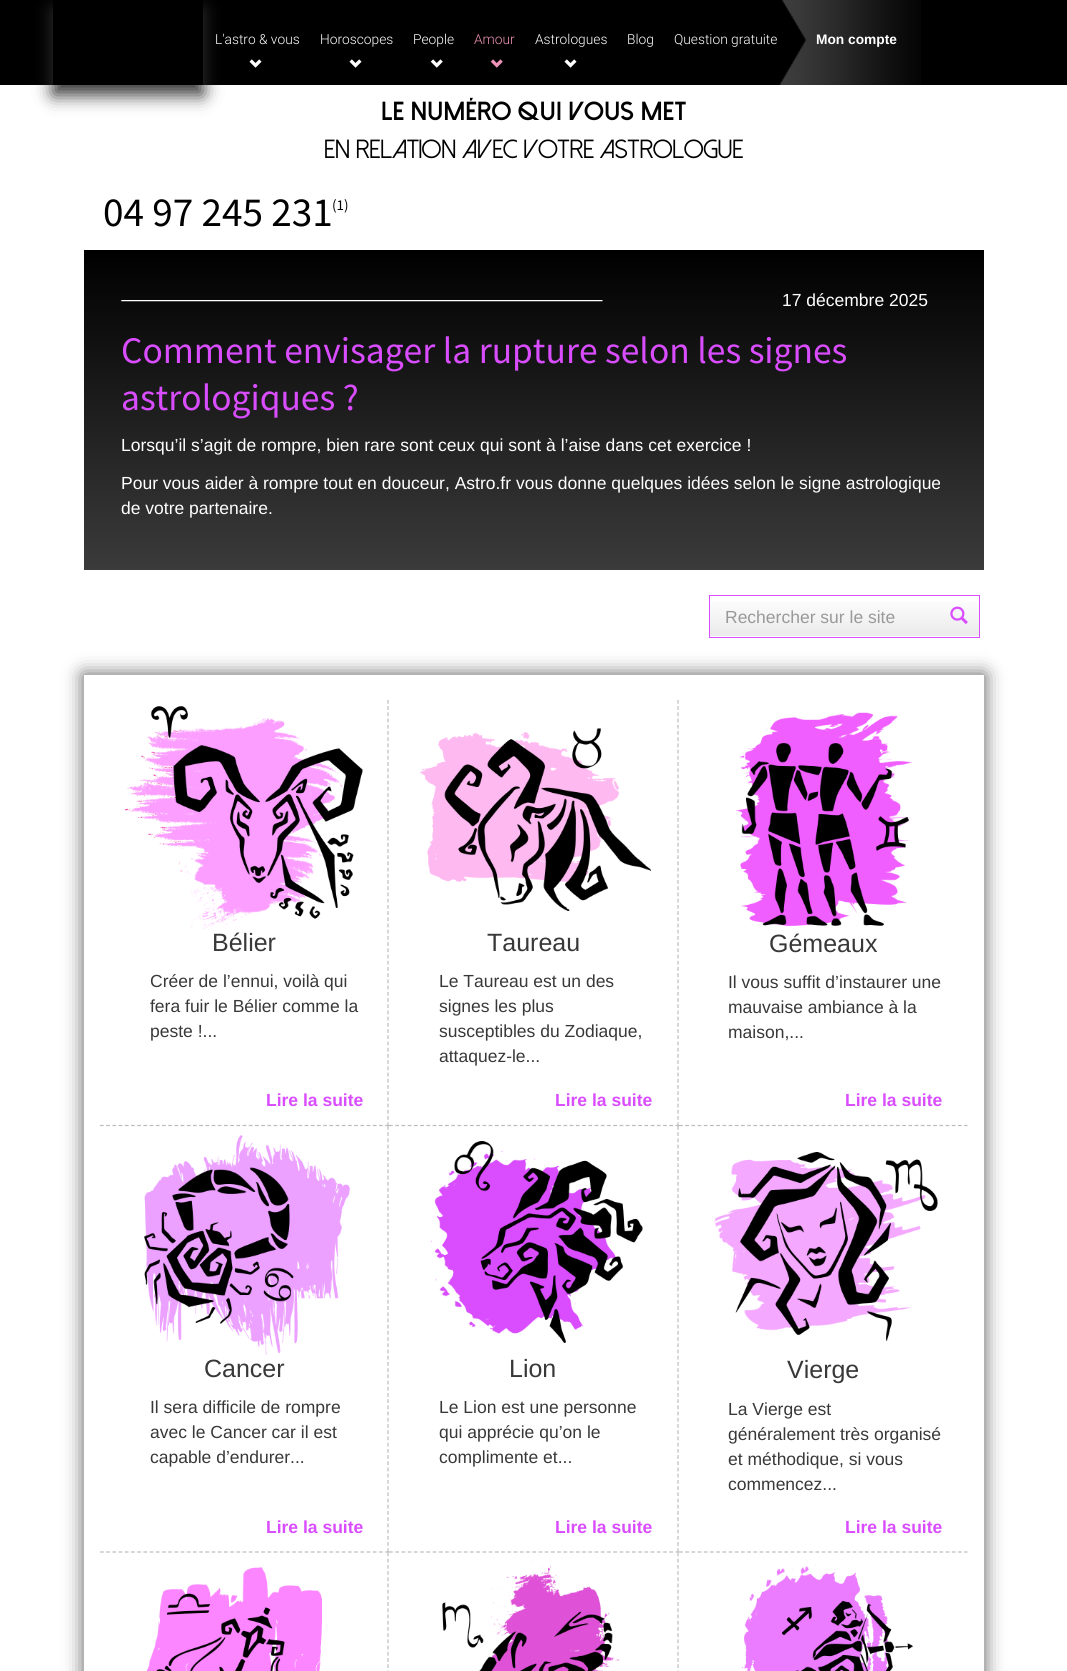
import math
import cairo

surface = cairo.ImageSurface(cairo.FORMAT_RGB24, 1067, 1671)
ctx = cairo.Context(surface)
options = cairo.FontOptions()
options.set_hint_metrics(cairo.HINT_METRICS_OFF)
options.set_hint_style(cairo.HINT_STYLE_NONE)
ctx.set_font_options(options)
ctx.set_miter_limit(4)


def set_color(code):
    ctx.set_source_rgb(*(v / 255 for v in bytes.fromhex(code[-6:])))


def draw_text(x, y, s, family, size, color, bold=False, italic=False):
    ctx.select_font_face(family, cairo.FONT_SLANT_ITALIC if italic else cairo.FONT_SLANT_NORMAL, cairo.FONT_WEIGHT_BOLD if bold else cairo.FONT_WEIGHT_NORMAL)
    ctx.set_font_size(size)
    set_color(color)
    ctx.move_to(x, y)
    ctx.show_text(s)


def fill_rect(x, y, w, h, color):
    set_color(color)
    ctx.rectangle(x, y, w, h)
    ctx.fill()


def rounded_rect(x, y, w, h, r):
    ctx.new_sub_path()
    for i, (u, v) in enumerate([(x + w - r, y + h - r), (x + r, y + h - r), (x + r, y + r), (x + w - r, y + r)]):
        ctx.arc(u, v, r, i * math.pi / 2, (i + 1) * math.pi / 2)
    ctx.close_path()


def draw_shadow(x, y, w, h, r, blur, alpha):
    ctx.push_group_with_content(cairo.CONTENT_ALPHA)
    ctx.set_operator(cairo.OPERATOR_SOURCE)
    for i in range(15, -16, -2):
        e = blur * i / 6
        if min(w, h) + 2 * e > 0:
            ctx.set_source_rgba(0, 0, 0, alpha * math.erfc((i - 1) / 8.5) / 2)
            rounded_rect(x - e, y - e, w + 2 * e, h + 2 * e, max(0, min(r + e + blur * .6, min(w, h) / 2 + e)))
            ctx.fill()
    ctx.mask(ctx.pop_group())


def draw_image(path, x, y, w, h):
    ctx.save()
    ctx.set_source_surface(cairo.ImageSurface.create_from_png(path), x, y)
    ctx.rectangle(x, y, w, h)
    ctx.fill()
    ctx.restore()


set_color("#000000")
ctx.paint()
fill_rect(0, 85, 1067, 1586, "#ffffff")
ctx.save()
ctx.set_fill_rule(cairo.FILL_RULE_EVEN_ODD)
ctx.new_path()
ctx.move_to(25, 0)
ctx.line_to(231, 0)
ctx.line_to(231, 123)
ctx.line_to(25, 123)
ctx.close_path()
ctx.move_to(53, 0)
ctx.line_to(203, 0)
ctx.line_to(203, 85)
ctx.line_to(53, 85)
ctx.close_path()
ctx.clip()
set_color("#343434")
draw_shadow(53, 10, 150, 85, 0, 9, 1)
ctx.restore()
draw_text(215, 44, "L'astro & vous", "Roboto Light", 13.75, "#ffffff")
draw_image("assets/img1.png", 249, 59, 13, 9)
draw_text(320, 44, "Horoscopes", "Roboto Light", 13.75, "#ffffff")
draw_image("assets/img1.png", 349, 59, 13, 9)
draw_text(413, 44, "People", "Roboto Light", 13.75, "#ffffff")
draw_image("assets/img2.png", 430, 59, 13, 9)
draw_text(474, 44, "Amour", "Roboto Light", 13.75, "#ee92b7")
draw_image("assets/img3.png", 490, 59, 13, 9)
draw_text(535, 44, "Astrologues", "Roboto Light", 13.75, "#ffffff")
draw_image("assets/img1.png", 564, 59, 13, 9)
draw_text(627, 44, "Blog", "Roboto Light", 13.75, "#ffffff")
draw_text(674, 44, "Question gratuite", "Roboto Light", 13.75, "#ffffff")
draw_image("assets/img4.png", 780, 0, 141, 85)
draw_text(816, 44, "Mon compte", "Liberation Sans", 13.75, "#ffffff", bold=True)
draw_text(381, 120, "Le numéro qui vous met", "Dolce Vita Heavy", 26.25, "#000000", bold=True)
draw_text(324, 158, "en relation avec votre astrologue", "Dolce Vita", 26.25, "#000000")
draw_text(103, 226, "04 97 245 231", "Source Sans Pro", 41.25, "#000000")
draw_text(332, 210, "(1)", "Source Sans Pro", 15, "#000000")
gradient = cairo.LinearGradient(534, 250, 534, 570)
gradient.add_color_stop_rgba(0, 0, 0, 0, 1)
gradient.add_color_stop_rgba(1, 0.231, 0.231, 0.231, 1)
ctx.set_source(gradient)
ctx.rectangle(84, 250, 900, 320)
ctx.fill()
draw_image("assets/img5.png", 121, 300, 482, 2)
draw_text(782, 306, "17 décembre 2025", "Liberation Sans", 17.5, "#ffffff")
draw_text(121, 363, "Comment envisager la rupture selon les signes", "Source Sans Pro", 37.5, "#d94dff")
draw_text(121, 410, "astrologiques ?", "Source Sans Pro", 37.5, "#d94dff")
draw_text(121, 451, "Lorsqu’il s’agit de rompre, bien rare sont ceux qui sont à l’aise dans cet exercice !", "Liberation Sans", 17.5, "#ffffff")
draw_text(121, 489, "Pour vous aider à rompre tout en douceur, Astro.fr vous donne quelques idées selon le signe astrologique", "Liberation Sans", 17.5, "#ffffff")
draw_text(121, 514, "de votre partenaire.", "Liberation Sans", 17.5, "#ffffff")
gradient = cairo.LinearGradient(844, 596, 844, 636)
gradient.add_color_stop_rgba(0, 1, 1, 1, 1)
gradient.add_color_stop_rgba(1, 0.918, 0.918, 0.918, 1)
ctx.set_source(gradient)
ctx.rectangle(710, 601, 269, 35)
ctx.fill()
ctx.rectangle(709.5, 595.5, 270, 42)
set_color("#d94dff")
ctx.set_line_width(1)
ctx.stroke()
draw_text(725, 623, "Rechercher sur le site", "Liberation Sans", 17.5, "#999999")
draw_image("assets/img6.png", 950, 606, 18, 18)
ctx.save()
ctx.set_fill_rule(cairo.FILL_RULE_EVEN_ODD)
ctx.new_path()
ctx.move_to(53, 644)
ctx.line_to(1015, 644)
ctx.line_to(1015, 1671)
ctx.line_to(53, 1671)
ctx.close_path()
ctx.move_to(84, 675)
ctx.line_to(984, 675)
ctx.line_to(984, 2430)
ctx.line_to(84, 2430)
ctx.close_path()
ctx.clip()
set_color("#666666")
draw_shadow(83, 674, 902, 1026, 0, 9.5, 1)
ctx.restore()
ctx.set_source_rgba(1, 1, 1, 0.85)
ctx.rectangle(983, 675, 1, 996)
ctx.fill()
ctx.new_path()
ctx.move_to(388, 700)
ctx.line_to(388, 1126)
set_color("#bdbbbe")
ctx.set_line_width(1.2)
ctx.set_dash([3.75, 2.46])
ctx.stroke()
ctx.new_path()
ctx.move_to(100, 1125.5)
ctx.line_to(389, 1125.5)
ctx.set_dash([3.75, 2.45])
ctx.stroke()
draw_image("assets/img7.png", 125, 706, 238, 223)
draw_text(212, 951, "Bélier", "Liberation Sans", 25, "#383838")
draw_text(150, 987, "Créer de l’ennui, voilà qui", "Liberation Sans", 17.5, "#383838")
draw_text(150, 1012, "fera fuir le Bélier comme la", "Liberation Sans", 17.5, "#383838")
draw_text(150, 1037, "peste !...", "Liberation Sans", 17.5, "#383838")
draw_text(266, 1106, "Lire la suite", "Liberation Sans", 17.5, "#d94dff", bold=True)
ctx.new_path()
ctx.move_to(678, 700)
ctx.line_to(678, 1126)
set_color("#bdbbbe")
ctx.set_dash([3.75, 2.46])
ctx.stroke()
ctx.new_path()
ctx.move_to(389, 1125.5)
ctx.line_to(679, 1125.5)
ctx.set_dash([3.75, 2.48])
ctx.stroke()
draw_image("assets/img8.png", 420, 728, 231, 183)
draw_text(487, 951, "Taureau", "Liberation Sans", 25, "#383838")
draw_text(439, 987, "Le Taureau est un des", "Liberation Sans", 17.5, "#383838")
draw_text(439, 1012, "signes les plus", "Liberation Sans", 17.5, "#383838")
draw_text(439, 1037, "susceptibles du Zodiaque,", "Liberation Sans", 17.5, "#383838")
draw_text(439, 1062, "attaquez-le...", "Liberation Sans", 17.5, "#383838")
draw_text(555, 1106, "Lire la suite", "Liberation Sans", 17.5, "#d94dff", bold=True)
ctx.new_path()
ctx.move_to(679, 1125.5)
ctx.line_to(967.5, 1125.5)
set_color("#bdbbbe")
ctx.set_dash([3.75, 2.45])
ctx.stroke()
draw_image("assets/img9.png", 736, 712, 176, 215)
draw_text(769, 952, "Gémeaux", "Liberation Sans", 25, "#383838")
draw_text(728, 988, "Il vous suffit d’instaurer une", "Liberation Sans", 17.5, "#383838")
draw_text(728, 1013, "mauvaise ambiance à la", "Liberation Sans", 17.5, "#383838")
draw_text(728, 1038, "maison,...", "Liberation Sans", 17.5, "#383838")
draw_text(845, 1106, "Lire la suite", "Liberation Sans", 17.5, "#d94dff", bold=True)
ctx.new_path()
ctx.move_to(388, 1126)
ctx.line_to(388, 1552.5)
set_color("#bdbbbe")
ctx.set_dash([3.75, 2.46])
ctx.stroke()
ctx.new_path()
ctx.move_to(100, 1552)
ctx.line_to(389, 1552)
ctx.set_dash([3.75, 2.45])
ctx.stroke()
draw_image("assets/img10.png", 144, 1135, 206, 220)
draw_text(204, 1377, "Cancer", "Liberation Sans", 25, "#383838")
draw_text(150, 1413, "Il sera difficile de rompre", "Liberation Sans", 17.5, "#383838")
draw_text(150, 1438, "avec le Cancer car il est", "Liberation Sans", 17.5, "#383838")
draw_text(150, 1463, "capable d’endurer...", "Liberation Sans", 17.5, "#383838")
draw_text(266, 1533, "Lire la suite", "Liberation Sans", 17.5, "#d94dff", bold=True)
ctx.new_path()
ctx.move_to(678, 1126)
ctx.line_to(678, 1552.5)
set_color("#bdbbbe")
ctx.set_dash([3.75, 2.46])
ctx.stroke()
ctx.new_path()
ctx.move_to(389, 1552)
ctx.line_to(679, 1552)
ctx.set_dash([3.75, 2.48])
ctx.stroke()
draw_image("assets/img11.png", 431, 1141, 212, 202)
draw_text(509, 1377, "Lion", "Liberation Sans", 25, "#383838")
draw_text(439, 1413, "Le Lion est une personne", "Liberation Sans", 17.5, "#383838")
draw_text(439, 1438, "qui apprécie qu’on le", "Liberation Sans", 17.5, "#383838")
draw_text(439, 1463, "complimente et...", "Liberation Sans", 17.5, "#383838")
draw_text(555, 1533, "Lire la suite", "Liberation Sans", 17.5, "#d94dff", bold=True)
ctx.new_path()
ctx.move_to(679, 1552)
ctx.line_to(967.5, 1552)
set_color("#bdbbbe")
ctx.set_dash([3.75, 2.45])
ctx.stroke()
draw_image("assets/img12.png", 714, 1152, 224, 189)
draw_text(787, 1378, "Vierge", "Liberation Sans", 25, "#383838")
draw_text(728, 1415, "La Vierge est", "Liberation Sans", 17.5, "#383838")
draw_text(728, 1440, "généralement très organisé", "Liberation Sans", 17.5, "#383838")
draw_text(728, 1465, "et méthodique, si vous", "Liberation Sans", 17.5, "#383838")
draw_text(728, 1490, "commencez...", "Liberation Sans", 17.5, "#383838")
draw_text(845, 1533, "Lire la suite", "Liberation Sans", 17.5, "#d94dff", bold=True)
ctx.new_path()
ctx.move_to(388, 1552.5)
ctx.line_to(388, 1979)
set_color("#bdbbbe")
ctx.set_dash([3.75, 2.46])
ctx.stroke()
draw_image("assets/img13.png", 146, 1567, 176, 104)
ctx.new_path()
ctx.move_to(678, 1552.5)
ctx.line_to(678, 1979)
ctx.stroke()
draw_image("assets/img14.png", 442, 1561, 178, 110)
draw_image("assets/img15.png", 741, 1564, 172, 107)
surface.write_to_png("output.png")
